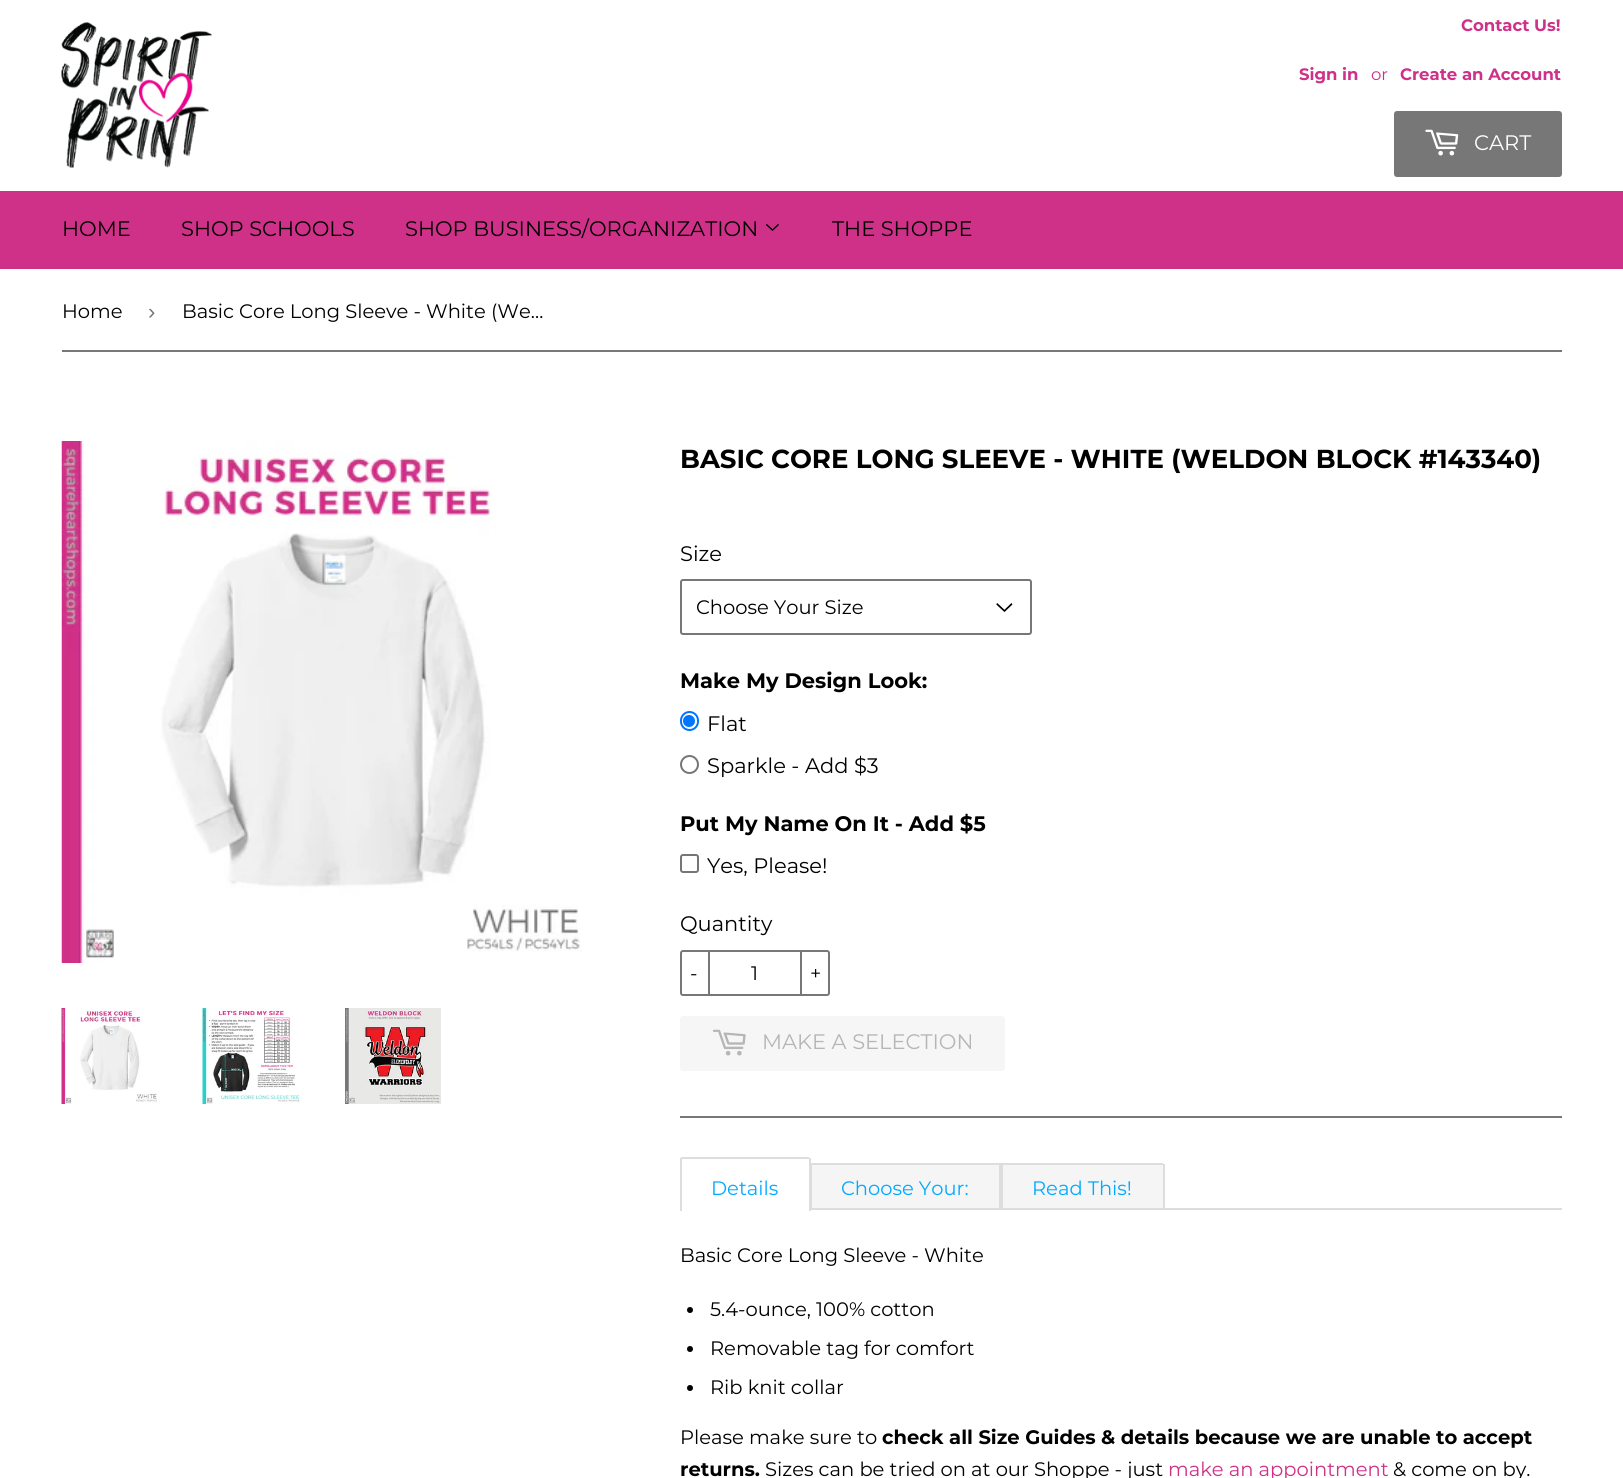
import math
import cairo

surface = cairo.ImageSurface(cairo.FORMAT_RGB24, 1623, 1478)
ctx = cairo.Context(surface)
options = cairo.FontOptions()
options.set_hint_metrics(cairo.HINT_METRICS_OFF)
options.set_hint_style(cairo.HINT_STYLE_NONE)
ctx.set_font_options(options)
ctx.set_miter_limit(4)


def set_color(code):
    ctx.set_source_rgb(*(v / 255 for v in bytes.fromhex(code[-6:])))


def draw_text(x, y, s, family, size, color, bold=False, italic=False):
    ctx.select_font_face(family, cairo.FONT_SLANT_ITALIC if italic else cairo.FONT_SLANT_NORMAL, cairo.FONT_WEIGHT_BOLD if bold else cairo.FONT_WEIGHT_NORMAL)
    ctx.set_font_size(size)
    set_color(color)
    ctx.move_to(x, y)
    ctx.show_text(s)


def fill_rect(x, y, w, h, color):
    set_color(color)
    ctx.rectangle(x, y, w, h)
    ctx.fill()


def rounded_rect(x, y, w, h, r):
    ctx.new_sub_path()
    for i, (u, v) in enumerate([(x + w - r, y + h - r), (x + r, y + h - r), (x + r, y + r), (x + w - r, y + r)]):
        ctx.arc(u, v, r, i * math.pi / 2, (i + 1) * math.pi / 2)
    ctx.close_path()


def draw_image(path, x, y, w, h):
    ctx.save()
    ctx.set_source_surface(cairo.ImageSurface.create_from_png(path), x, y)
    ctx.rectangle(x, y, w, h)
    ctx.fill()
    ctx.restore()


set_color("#ffffff")
ctx.paint()
draw_image("assets/img1.png", 61, 22, 151, 146)
draw_text(1461, 31, "Contact Us!", "Montserrat", 16.5, "#cf3088", bold=True)
draw_text(1299, 80, "Sign in", "Montserrat", 16.5, "#cf3088", bold=True)
draw_text(1371, 80, "or", "Montserrat", 16.5, "#cf3088")
draw_text(1400, 80, "Create an Account", "Montserrat", 16.5, "#cf3088", bold=True)
set_color("#777777")
rounded_rect(1394, 111, 168, 66, 3)
ctx.fill()
draw_image("assets/img2.png", 1425, 129, 34, 27)
draw_text(1474, 150, "CART", "Montserrat", 21, "#ffffff")
fill_rect(0, 191, 1623, 78, "#cf3088")
draw_text(62, 236, "HOME", "Montserrat", 21, "#000000")
draw_text(181, 236, "SHOP SCHOOLS", "Montserrat", 21, "#000000")
draw_text(405, 236, "SHOP BUSINESS/ORGANIZATION", "Montserrat", 21, "#000000")
draw_image("assets/img3.png", 766, 224, 13, 7)
draw_text(832, 236, "THE SHOPPE", "Montserrat", 21, "#000000")
fill_rect(62, 350, 1500, 2, "#777777")
draw_text(62, 318, "Home", "Montserrat", 19.5, "#000000")
draw_text(148, 319, "›", "Liberation Sans", 22, "#767676")
draw_text(182, 318, "Basic Core Long Sleeve - White (We…", "Montserrat", 19.5, "#000000")
draw_image("assets/img4.png", 61, 441, 521, 522)
draw_image("assets/img5.png", 61, 1008, 96, 96)
draw_image("assets/img6.png", 202, 1008, 98, 96)
draw_image("assets/img7.png", 345, 1008, 96, 96)
draw_text(680, 468, "BASIC CORE LONG SLEEVE - WHITE (WELDON BLOCK #143340)", "Montserrat", 26, "#000000", bold=True)
draw_text(680, 561, "Size", "Montserrat", 21, "#000000")
draw_image("assets/img8.png", 996, 603, 17, 9)
rounded_rect(681, 580, 350, 54, 2)
set_color("#777777")
ctx.stroke()
draw_text(696, 614, "Choose Your Size", "Montserrat", 19.5, "#000000")
draw_text(680, 688, "Make My Design Look:", "Montserrat", 21, "#000000", bold=True)
rounded_rect(681, 712, 17, 18, 8.5)
set_color("#0075ff")
ctx.stroke()
ctx.arc(689, 721, 6, 0, 2 * math.pi)
ctx.fill()
draw_text(707, 731, "Flat", "Montserrat", 21, "#000000")
ctx.new_path()
ctx.arc(689.5, 764.5, 8.5, 0, 2 * math.pi)
set_color("#767676")
ctx.stroke()
draw_text(707, 773, "Sparkle - Add $3", "Montserrat", 21, "#000000")
draw_text(680, 831, "Put My Name On It - Add $5", "Montserrat", 21, "#000000", bold=True)
rounded_rect(681, 855, 17, 17, 2)
set_color("#767676")
ctx.stroke()
draw_text(707, 873, "Yes, Please!", "Montserrat", 21, "#000000")
draw_text(680, 931, "Quantity", "Montserrat", 21, "#000000")
rounded_rect(681, 951, 148, 44, 2)
set_color("#777777")
ctx.stroke()
fill_rect(708, 950, 2, 46, "#777777")
draw_text(690, 980, "-", "Montserrat", 19.5, "#000000")
draw_text(751, 980, "1", "Montserrat", 19.5, "#000000")
fill_rect(800, 950, 2, 46, "#777777")
draw_text(810, 980, "+", "Montserrat", 19.5, "#000000")
set_color("#f6f6f6")
rounded_rect(680, 1016, 325, 55, 3)
ctx.fill()
draw_image("assets/img9.png", 712, 1029, 34, 27)
draw_text(762, 1049, "MAKE A SELECTION", "Montserrat", 21, "#b6b6b6")
fill_rect(680, 1116, 882, 2, "#777777")
fill_rect(811, 1208, 751, 2, "#dddddd")
fill_rect(681, 1157, 128, 2, "#dddddd")
fill_rect(810, 1163, 191, 2, "#dddddd")
fill_rect(809, 1158, 2, 53, "#dddddd")
fill_rect(680, 1158, 2, 53, "#dddddd")
draw_text(711, 1195, "Details", "Montserrat", 19.5, "#00aaff")
fill_rect(812, 1165, 187, 43, "#f5f5f5")
fill_rect(999, 1163, 2, 45, "#dddddd")
fill_rect(811, 1163, 1, 45, "#dddddd")
draw_text(841, 1195, "Choose Your:", "Montserrat", 19.5, "#00aaff")
set_color("#f5f5f5")
ctx.new_path()
ctx.move_to(1001, 1163)
ctx.line_to(1161, 1163)
ctx.curve_to(1162.5, 1163, 1164, 1164.5, 1164, 1166)
ctx.line_to(1164, 1208)
ctx.line_to(1001, 1208)
ctx.close_path()
ctx.fill()
fill_rect(1001, 1163, 162, 2, "#dddddd")
fill_rect(1163, 1164, 2, 44, "#dddddd")
fill_rect(1001, 1163, 2, 45, "#dddddd")
draw_text(1032, 1195, "Read This!", "Montserrat", 19.5, "#00aaff")
draw_text(680, 1262, "Basic Core Long Sleeve - White", "Montserrat", 19.5, "#000000")
ctx.new_path()
ctx.arc(690, 1310, 3, 0, 2 * math.pi)
ctx.fill()
draw_text(710, 1316, "5.4-ounce, 100% cotton", "Montserrat", 19.5, "#000000")
ctx.new_path()
ctx.arc(690, 1349, 3, 0, 2 * math.pi)
ctx.fill()
draw_text(710, 1355, "Removable tag for comfort", "Montserrat", 19.5, "#000000")
ctx.new_path()
ctx.arc(690, 1388, 3, 0, 2 * math.pi)
ctx.fill()
draw_text(710, 1394, "Rib knit collar", "Montserrat", 19.5, "#000000")
draw_text(680, 1444, "Please make sure to", "Montserrat", 19.5, "#000000")
draw_text(882, 1444, "check all Size Guides & details because we are unable to accept", "Montserrat", 19.5, "#000000", bold=True)
draw_text(680, 1476, "returns.", "Montserrat", 19.5, "#000000", bold=True)
draw_text(765, 1476, "Sizes can be tried on at our Shoppe - just", "Montserrat", 19.5, "#000000")
draw_text(1168, 1476, "make an appointment", "Montserrat", 19.5, "#cf3088")
draw_text(1393, 1476, "& come on by.", "Montserrat", 19.5, "#000000")
surface.write_to_png("output.png")
